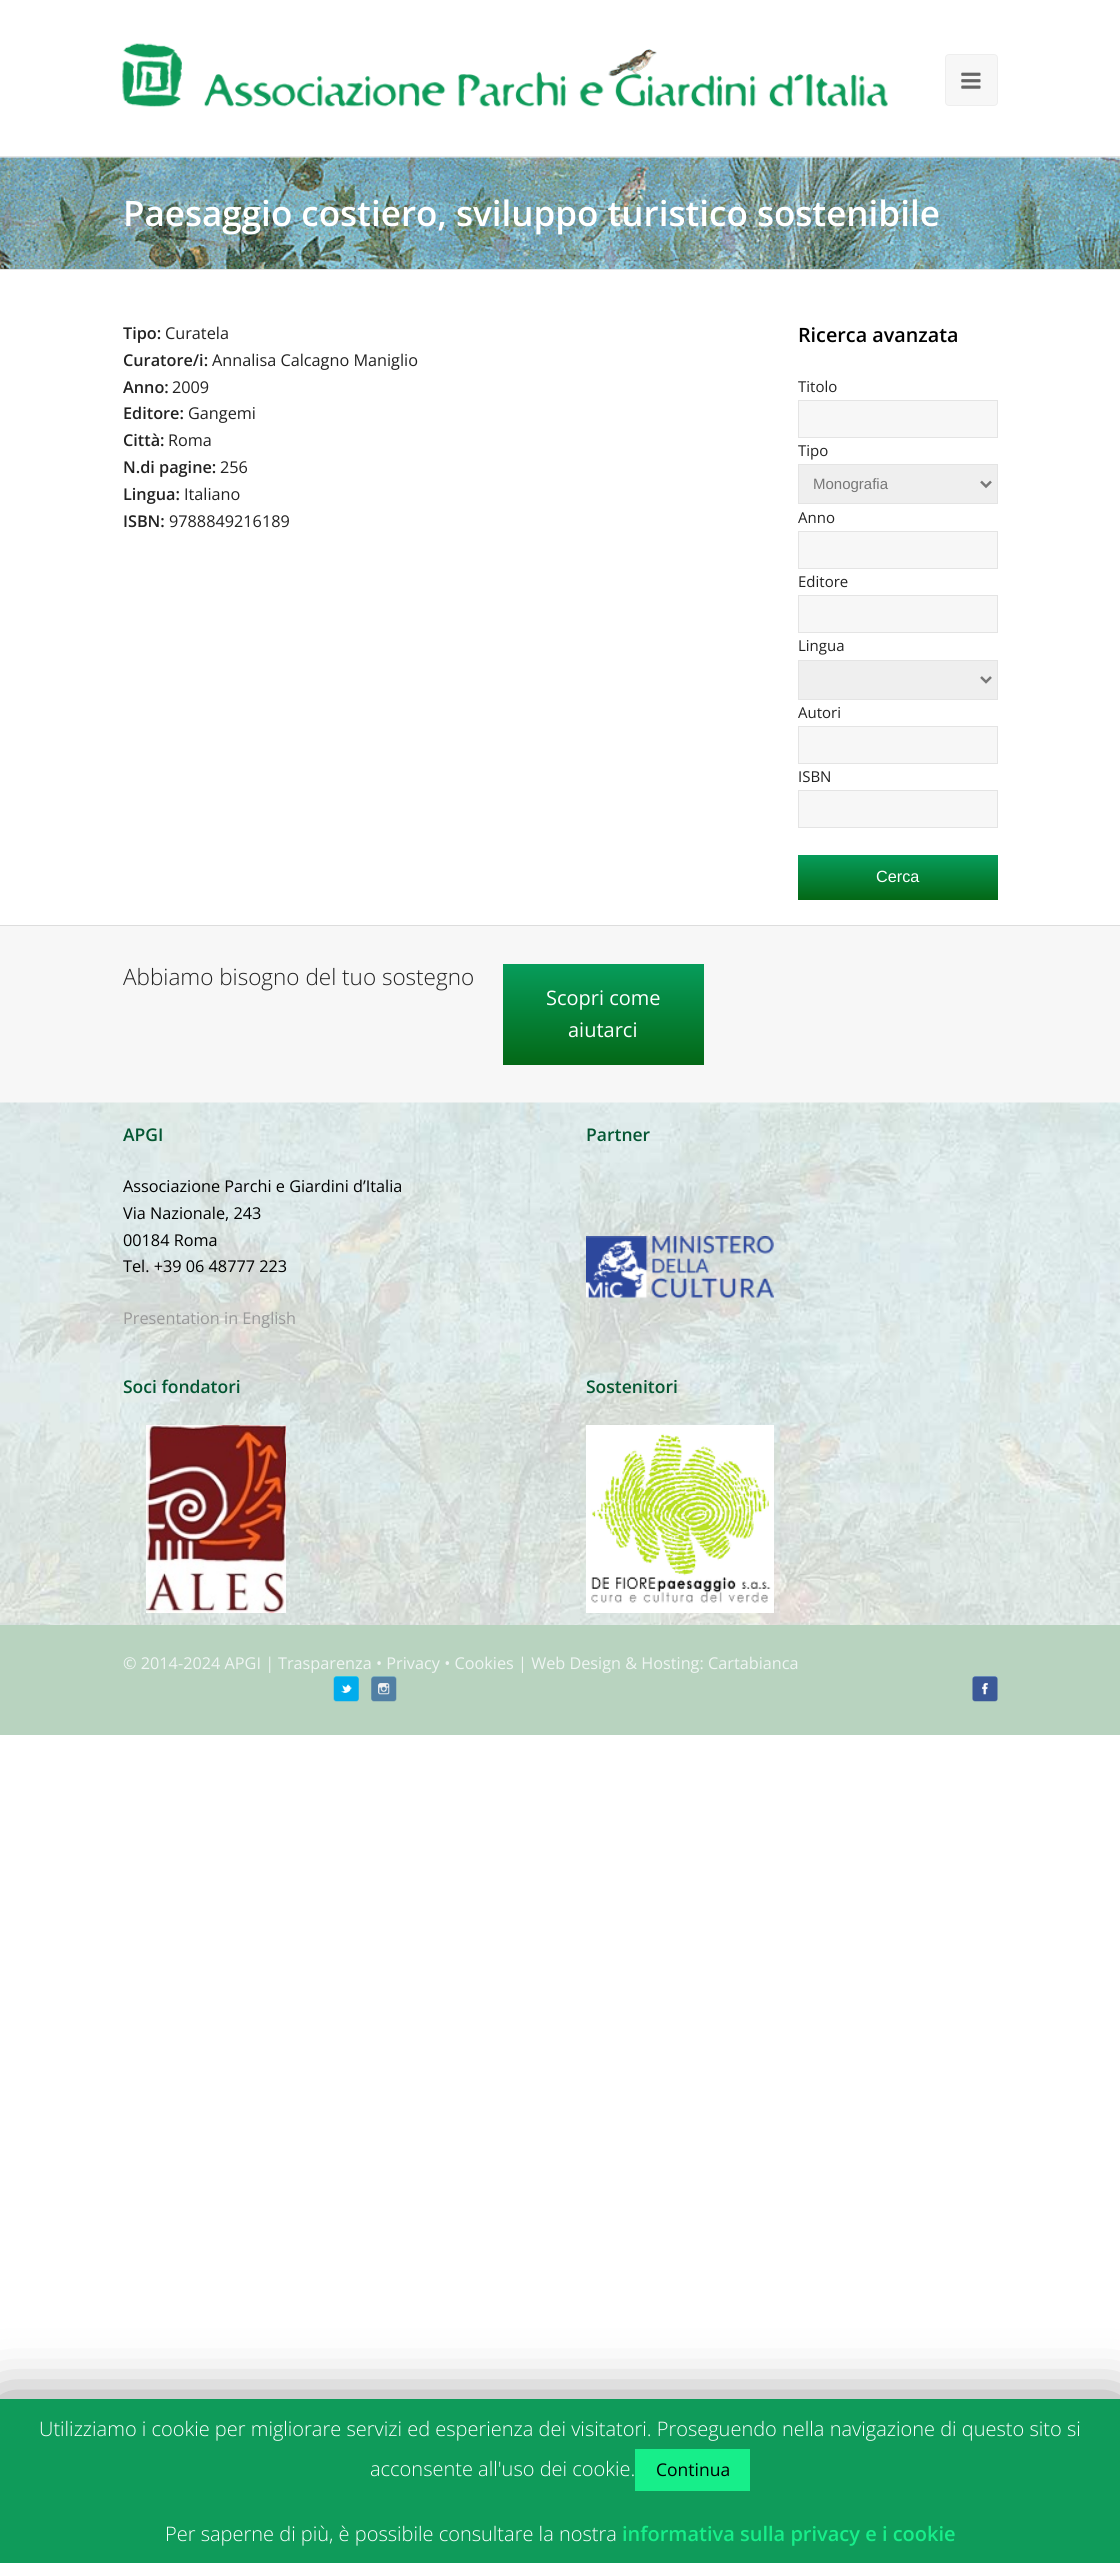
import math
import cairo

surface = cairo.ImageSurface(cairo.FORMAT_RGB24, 1120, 2563)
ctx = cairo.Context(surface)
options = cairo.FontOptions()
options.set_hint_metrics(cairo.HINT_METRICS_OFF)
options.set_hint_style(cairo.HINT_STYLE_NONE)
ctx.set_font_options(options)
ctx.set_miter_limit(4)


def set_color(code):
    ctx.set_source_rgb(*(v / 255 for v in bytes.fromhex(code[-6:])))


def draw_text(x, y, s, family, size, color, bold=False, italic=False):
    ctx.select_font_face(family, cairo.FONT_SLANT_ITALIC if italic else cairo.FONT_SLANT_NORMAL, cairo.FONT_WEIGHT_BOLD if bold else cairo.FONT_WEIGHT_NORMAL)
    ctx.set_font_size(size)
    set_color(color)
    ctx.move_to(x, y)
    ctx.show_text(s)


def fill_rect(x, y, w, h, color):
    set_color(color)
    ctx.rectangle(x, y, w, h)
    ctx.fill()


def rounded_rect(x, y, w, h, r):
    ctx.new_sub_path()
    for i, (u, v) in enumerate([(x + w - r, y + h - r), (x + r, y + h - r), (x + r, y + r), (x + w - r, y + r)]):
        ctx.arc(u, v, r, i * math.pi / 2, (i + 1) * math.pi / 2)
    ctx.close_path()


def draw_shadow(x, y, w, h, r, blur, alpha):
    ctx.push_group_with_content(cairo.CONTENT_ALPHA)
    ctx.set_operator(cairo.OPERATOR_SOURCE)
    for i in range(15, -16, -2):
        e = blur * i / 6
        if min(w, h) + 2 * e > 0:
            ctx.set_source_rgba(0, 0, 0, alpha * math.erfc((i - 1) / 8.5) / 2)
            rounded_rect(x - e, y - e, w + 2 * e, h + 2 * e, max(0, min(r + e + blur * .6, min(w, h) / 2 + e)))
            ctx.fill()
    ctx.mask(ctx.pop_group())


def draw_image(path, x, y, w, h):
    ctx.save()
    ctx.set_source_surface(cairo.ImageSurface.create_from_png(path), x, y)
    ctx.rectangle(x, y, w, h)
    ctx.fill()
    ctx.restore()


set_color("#ffffff")
ctx.paint()
draw_image("assets/img1.png", 122, 43, 766, 64)
set_color("#f7f7f7")
rounded_rect(945.5, 54.5, 52, 51, 3.5)
ctx.fill_preserve()
set_color("#eeeeee")
ctx.set_line_width(1)
ctx.stroke()
draw_image("assets/img2.png", 961, 72, 20, 17)
fill_rect(0, 157, 1120, 1, "#f7f7f7")
draw_image("assets/img3.png", 0, 157, 1120, 112)
fill_rect(0, 156, 1120, 1, "#e4e4e4")
fill_rect(0, 269, 1120, 1, "#e4e4e4")
draw_text(123, 226, "Paesaggio costiero, sviluppo turistico sostenibile", "Open Sans SemiBold", 35, "#ffffff")
draw_text(123, 339, "Tipo:", "Open Sans SemiBold", 16.25, "#222222")
draw_text(165, 339, "Curatela", "Open Sans", 16.25, "#222222")
draw_text(123, 366, "Curatore/i:", "Open Sans SemiBold", 16.25, "#222222")
draw_text(212, 366, "Annalisa Calcagno Maniglio", "Open Sans", 16.25, "#222222")
draw_text(123, 393, "Anno:", "Open Sans SemiBold", 16.25, "#222222")
draw_text(172, 393, "2009", "Open Sans", 16.25, "#222222")
draw_text(123, 419, "Editore:", "Open Sans SemiBold", 16.25, "#222222")
draw_text(188, 419, "Gangemi", "Open Sans", 16.25, "#222222")
draw_text(123, 446, "Città:", "Open Sans SemiBold", 16.25, "#222222")
draw_text(168, 446, "Roma", "Open Sans", 16.25, "#222222")
draw_text(123, 473, "N.di pagine:", "Open Sans SemiBold", 16.25, "#222222")
draw_text(220, 473, "256", "Open Sans", 16.25, "#222222")
draw_text(123, 500, "Lingua:", "Open Sans SemiBold", 16.25, "#222222")
draw_text(184, 500, "Italiano", "Open Sans", 16.25, "#222222")
draw_text(123, 527, "ISBN:", "Open Sans SemiBold", 16.25, "#222222")
draw_text(169, 527, "9788849216189", "Open Sans", 16.25, "#222222")
draw_text(798, 342, "Ricerca avanzata", "Open Sans SemiBold", 19.75, "#000000")
draw_text(798, 392, "Titolo", "Open Sans", 15, "#222222")
set_color("#f7f7f7")
ctx.rectangle(798.5, 400.5, 199, 37)
ctx.fill_preserve()
set_color("#e4e4e4")
ctx.stroke()
draw_text(798, 456, "Tipo", "Open Sans", 15, "#222222")
set_color("#efefef")
ctx.rectangle(798.5, 464.5, 199, 39)
ctx.fill_preserve()
set_color("#e4e4e4")
ctx.stroke()
ctx.new_path()
ctx.move_to(981, 481.5)
ctx.line_to(986, 486.5)
ctx.line_to(991, 481.5)
set_color("#777777")
ctx.set_line_width(2.5)
ctx.stroke()
draw_text(813, 489, "Monografia", "Liberation Sans", 15, "#777777")
draw_text(798, 523, "Anno", "Open Sans", 15, "#222222")
set_color("#f7f7f7")
ctx.rectangle(798.5, 531.5, 199, 37)
ctx.fill_preserve()
set_color("#e4e4e4")
ctx.set_line_width(1)
ctx.stroke()
draw_text(798, 587, "Editore", "Open Sans", 15, "#222222")
set_color("#f7f7f7")
ctx.rectangle(798.5, 595.5, 199, 37)
ctx.fill_preserve()
set_color("#e4e4e4")
ctx.stroke()
draw_text(798, 651, "Lingua", "Open Sans", 15, "#222222")
set_color("#efefef")
ctx.rectangle(798.5, 660.5, 199, 39)
ctx.fill_preserve()
set_color("#e4e4e4")
ctx.stroke()
ctx.new_path()
ctx.move_to(981, 677)
ctx.line_to(986, 682)
ctx.line_to(991, 677)
set_color("#777777")
ctx.set_line_width(2.5)
ctx.stroke()
draw_text(798, 718, "Autori", "Open Sans", 15, "#222222")
set_color("#f7f7f7")
ctx.rectangle(798.5, 726.5, 199, 37)
ctx.fill_preserve()
set_color("#e4e4e4")
ctx.set_line_width(1)
ctx.stroke()
draw_text(798, 782, "ISBN", "Open Sans", 15, "#222222")
set_color("#f7f7f7")
ctx.rectangle(798.5, 790.5, 199, 37)
ctx.fill_preserve()
set_color("#e4e4e4")
ctx.stroke()
gradient = cairo.LinearGradient(898, 855, 898, 900)
gradient.add_color_stop_rgba(0, 0.024, 0.612, 0.357, 1)
gradient.add_color_stop_rgba(1, 0.016, 0.408, 0.086, 1)
ctx.set_source(gradient)
ctx.rectangle(798, 855, 200, 45)
ctx.fill()
draw_text(876, 882, "Cerca", "Liberation Sans", 16.25, "#ffffff")
fill_rect(0, 926, 1120, 177, "#f7f7f7")
fill_rect(0, 925, 1120, 1, "#dddddd")
draw_text(123, 985, "Abbiamo bisogno del tuo sostegno", "Open Sans Light", 22.5, "#222222")
gradient = cairo.LinearGradient(603, 964, 603, 1065)
gradient.add_color_stop_rgba(0, 0.024, 0.612, 0.357, 1)
gradient.add_color_stop_rgba(1, 0.016, 0.408, 0.086, 1)
ctx.set_source(gradient)
ctx.rectangle(503, 964, 201, 101)
ctx.fill()
draw_text(546, 1005, "Scopri come", "Open Sans", 20, "#ffffff")
draw_text(568, 1037, "aiutarci", "Open Sans", 20, "#ffffff")
draw_image("assets/img4.png", 0, 1102, 1120, 523)
draw_text(123, 1141, "APGI", "Open Sans SemiBold", 17.5, "#035632")
draw_text(123, 1192, "Associazione Parchi e Giardini d’Italia", "Open Sans", 16.25, "#000000")
draw_text(123, 1219, "Via Nazionale, 243", "Open Sans", 16.25, "#000000")
draw_text(123, 1246, "00184 Roma", "Open Sans", 16.25, "#000000")
draw_text(123, 1272, "Tel. +39 06 48777 223", "Open Sans", 16.25, "#000000")
draw_text(123, 1324, "Presentation in English", "Open Sans", 16.25, "#999999")
draw_text(586, 1141, "Partner", "Open Sans SemiBold", 17.5, "#035632")
draw_image("assets/img5.png", 586, 1236, 188, 62)
draw_text(123, 1393, "Soci fondatori", "Open Sans SemiBold", 17.5, "#035632")
draw_image("assets/img6.png", 146, 1425, 140, 188)
draw_text(586, 1393, "Sostenitori", "Open Sans SemiBold", 17.5, "#035632")
draw_image("assets/img7.png", 586, 1425, 188, 188)
fill_rect(0, 1625, 1120, 110, "#b8d3bf")
draw_text(123, 1669, "© 2014-2024 APGI |", "Open Sans", 16.25, "#eff5f3")
draw_text(278, 1669, "Trasparenza", "Open Sans", 16.25, "#eff5f3")
draw_text(376, 1669, "• Privacy • Cookies | Web Design & Hosting:", "Open Sans", 16.25, "#eff5f3")
draw_text(708, 1669, "Cartabianca", "Open Sans", 16.25, "#eff5f3")
draw_image("assets/img8.png", 333, 1676, 26, 26)
draw_image("assets/img9.png", 371, 1676, 26, 26)
draw_image("assets/img10.png", 972, 1676, 26, 26)
set_color("#000000")
draw_shadow(0, 2405, 1120, 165, 0, 31, 0.5)
fill_rect(0, 2399, 1120, 164, "#0f9b5a")
draw_text(39, 2436, "Utilizziamo i cookie per migliorare servizi ed esperienza dei visitatori. Proseguendo nella navigazione di questo sito si", "Open Sans Light", 20, "#ffffff")
draw_text(370, 2476, "acconsente all'uso dei cookie.", "Open Sans Light", 20, "#ffffff")
fill_rect(635, 2449, 115, 42, "#17ee8a")
draw_text(656, 2476, "Continua", "Open Sans", 17.5, "#000000")
draw_text(165, 2541, "Per saperne di più, è possibile consultare la nostra", "Open Sans Light", 20, "#ffffff")
draw_text(622, 2541, "informativa sulla privacy e i cookie", "Open Sans SemiBold", 20, "#17ee8a")
surface.write_to_png("output.png")
